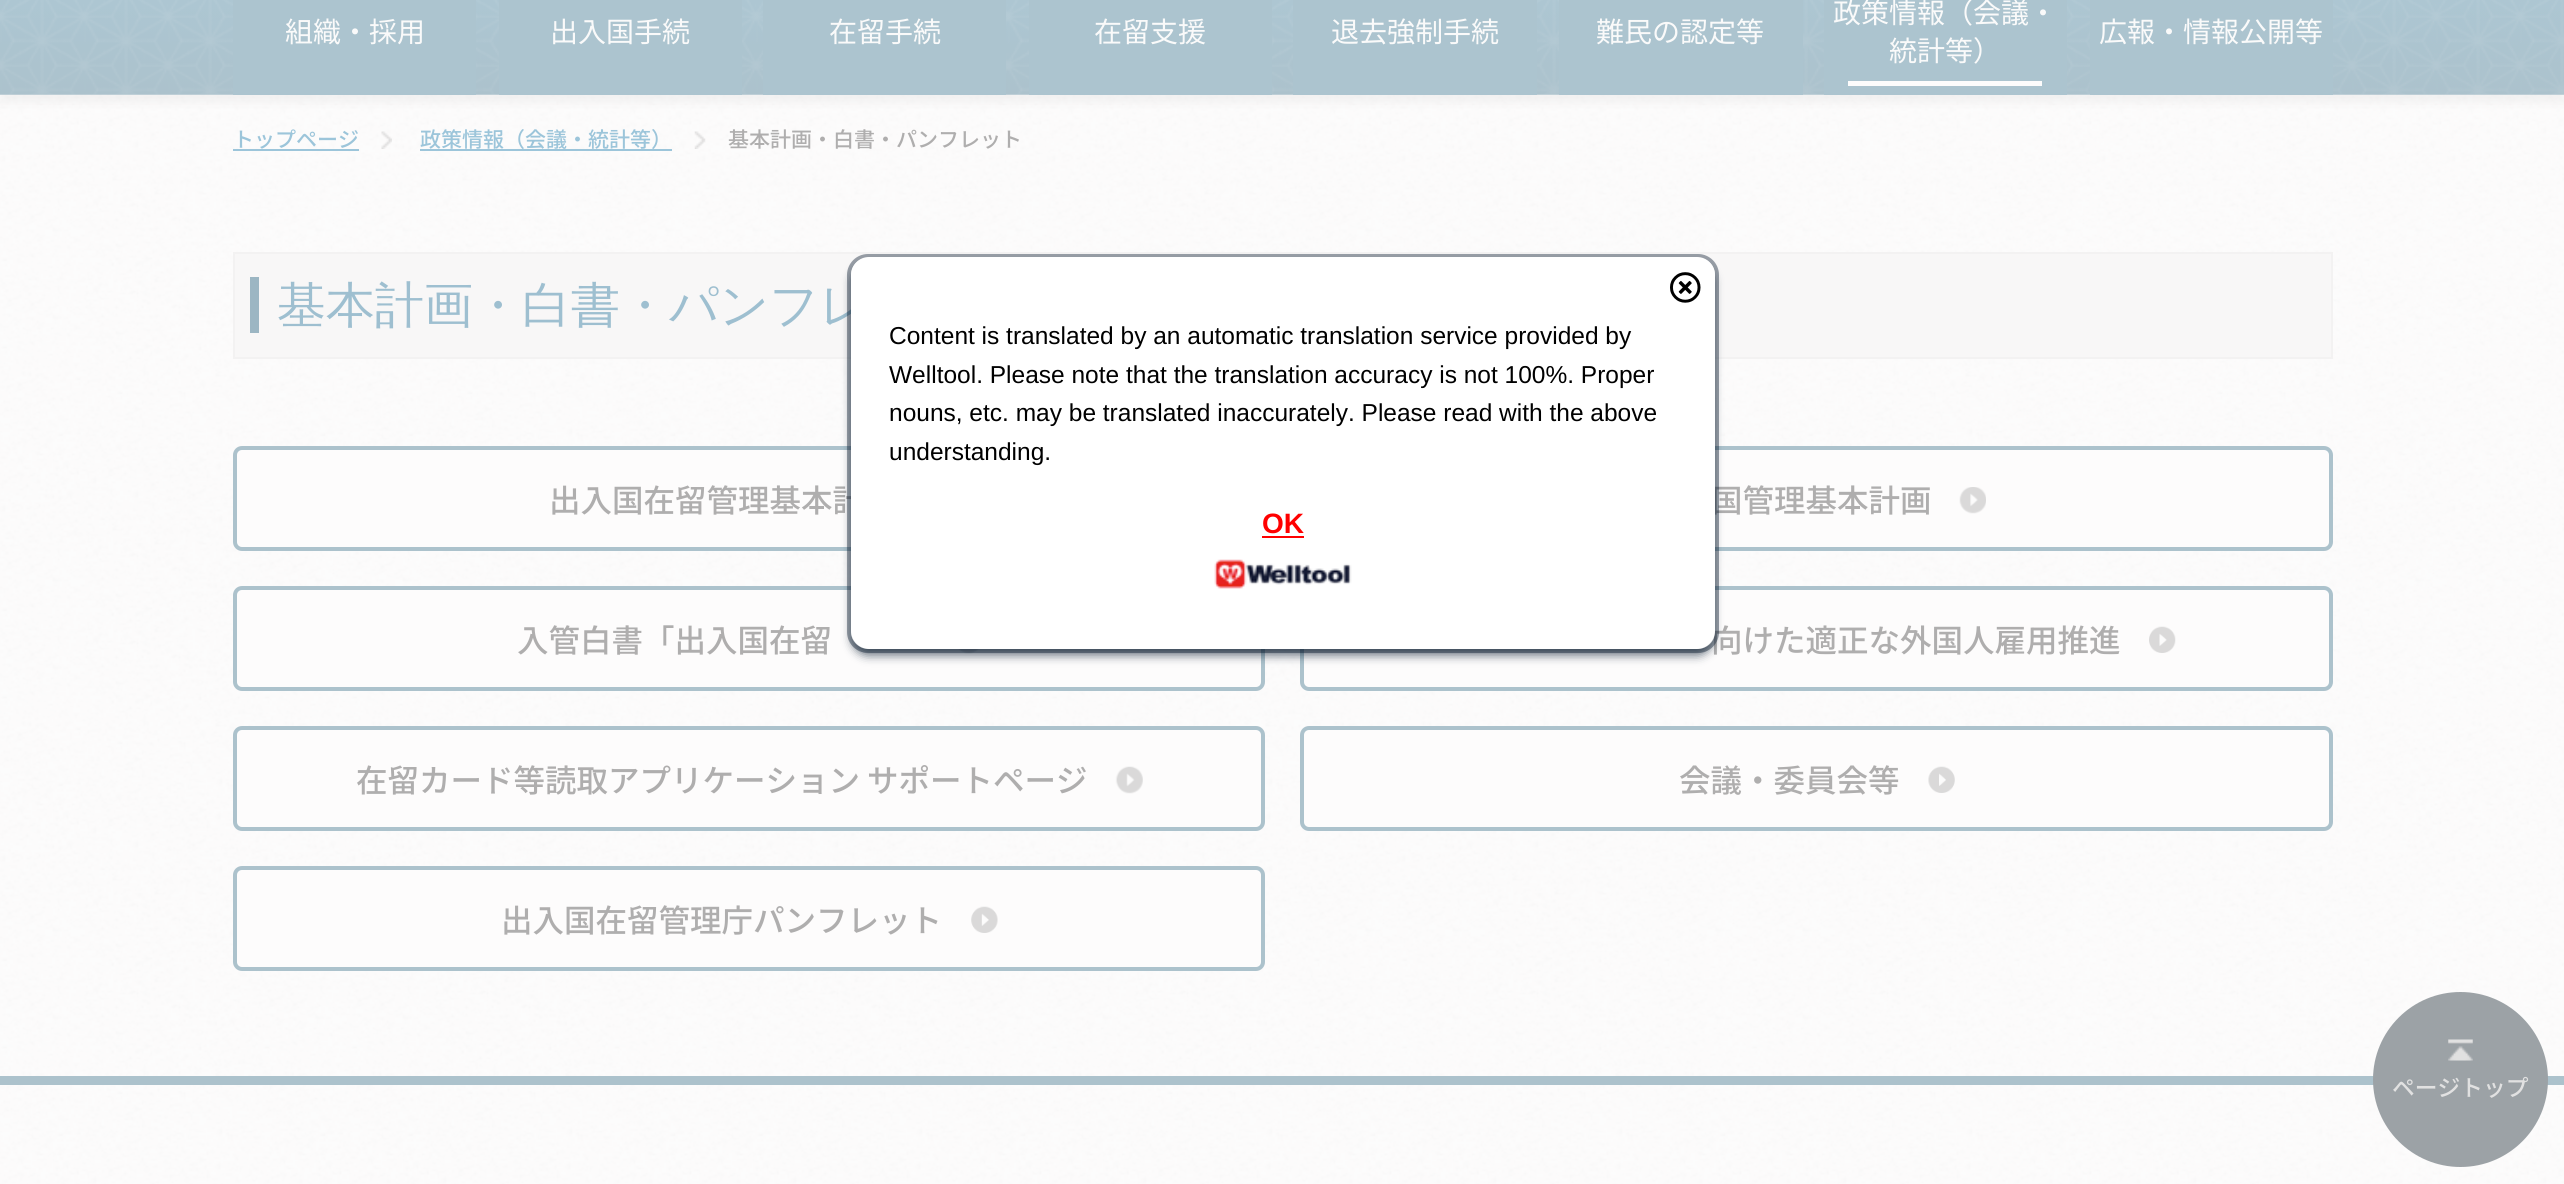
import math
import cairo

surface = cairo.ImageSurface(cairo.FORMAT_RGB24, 2564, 1184)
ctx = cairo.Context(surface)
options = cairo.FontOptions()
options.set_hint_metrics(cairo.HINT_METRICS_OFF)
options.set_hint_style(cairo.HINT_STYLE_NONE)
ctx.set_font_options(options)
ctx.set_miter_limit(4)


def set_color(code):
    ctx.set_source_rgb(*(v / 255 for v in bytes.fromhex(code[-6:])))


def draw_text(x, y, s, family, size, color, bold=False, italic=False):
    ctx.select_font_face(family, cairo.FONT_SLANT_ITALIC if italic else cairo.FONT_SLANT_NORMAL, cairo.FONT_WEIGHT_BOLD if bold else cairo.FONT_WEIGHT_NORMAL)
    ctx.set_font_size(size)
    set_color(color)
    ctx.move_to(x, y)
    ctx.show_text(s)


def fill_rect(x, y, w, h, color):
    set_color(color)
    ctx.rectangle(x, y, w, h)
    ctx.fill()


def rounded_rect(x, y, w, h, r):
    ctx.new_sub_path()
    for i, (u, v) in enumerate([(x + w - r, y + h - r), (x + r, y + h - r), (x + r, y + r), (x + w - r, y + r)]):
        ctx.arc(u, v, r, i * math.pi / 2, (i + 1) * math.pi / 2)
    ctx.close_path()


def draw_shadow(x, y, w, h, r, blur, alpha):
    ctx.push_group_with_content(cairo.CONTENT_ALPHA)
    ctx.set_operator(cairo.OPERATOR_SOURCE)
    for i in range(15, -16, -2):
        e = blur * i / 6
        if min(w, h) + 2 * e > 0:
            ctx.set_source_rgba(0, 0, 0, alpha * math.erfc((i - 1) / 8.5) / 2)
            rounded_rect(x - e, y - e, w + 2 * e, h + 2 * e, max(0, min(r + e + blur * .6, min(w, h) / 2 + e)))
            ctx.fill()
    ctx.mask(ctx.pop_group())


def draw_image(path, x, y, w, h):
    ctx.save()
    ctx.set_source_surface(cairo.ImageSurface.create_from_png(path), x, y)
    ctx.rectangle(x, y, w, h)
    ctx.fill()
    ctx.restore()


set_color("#ffffff")
ctx.paint()
draw_image("assets/img1.png", 0, 94, 2564, 1090)
set_color("#9c9b9b")
draw_shadow(0, -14, 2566, 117, 0, 4.5, 0.1)
draw_image("assets/img2.png", 0, 0, 2564, 95)
fill_rect(233, 0, 243, 95, "#acc4cf")
draw_text(285, 42, "組織・採用", "Noto Sans JP", 28, "#fafafa")
fill_rect(499, 0, 243, 95, "#acc4cf")
draw_text(550, 42, "出入国手続", "Noto Sans JP", 28, "#fafafa")
fill_rect(763, 0, 243, 95, "#acc4cf")
draw_text(829, 42, "在留手続", "Noto Sans JP", 28, "#fafafa")
fill_rect(1029, 0, 243, 95, "#acc4cf")
draw_text(1094, 42, "在留支援", "Noto Sans JP", 28, "#fafafa")
fill_rect(1293, 0, 244, 95, "#acc4cf")
draw_text(1331, 42, "退去強制手続", "Noto Sans JP", 28, "#fafafa")
fill_rect(1559, 0, 244, 95, "#acc4cf")
draw_text(1596, 42, "難民の認定等", "Noto Sans JP", 28, "#fafafa")
fill_rect(1824, 0, 243, 95, "#acc4cf")
draw_text(1833, 23, "政策情報（会議・", "Noto Sans JP", 28, "#fafafa")
draw_text(1889, 61, "統計等）", "Noto Sans JP", 28, "#fafafa")
fill_rect(1848, 81, 194, 5, "#fdfcfc")
fill_rect(2090, 0, 243, 95, "#acc4cf")
draw_text(2099, 42, "広報・情報公開等", "Noto Sans JP", 28, "#fafafa")
draw_text(233, 147, "トップページ", "Noto Sans JP Medium", 21, "#9cc5da")
fill_rect(233, 149, 126, 2, "#9cc5da")
draw_image("assets/img3.png", 381, 131, 11, 18)
fill_rect(420, 149, 252, 2, "#9cc5da")
draw_text(420, 147, "政策情報（会議・統計等）", "Noto Sans JP Medium", 21, "#9cc5da")
draw_image("assets/img4.png", 694, 131, 12, 18)
draw_text(728, 147, "基本計画・白書・パンフレット", "Noto Sans JP Medium", 21, "#afaeae")
set_color("#f8f7f7")
ctx.rectangle(234, 253, 2098, 105)
ctx.fill_preserve()
set_color("#f3f2f2")
ctx.stroke()
fill_rect(250, 277, 9, 56, "#9cb6c3")
draw_text(277, 322, "基本計画・白書・パンフレ", "WenQuanYi Zen Hei Medium", 49, "#9ebfd0")
set_color("#fdfcfc")
rounded_rect(235, 448, 1028, 101, 7)
ctx.fill_preserve()
set_color("#acc2cc")
ctx.set_line_width(4)
ctx.stroke()
draw_text(549, 512, "出入国在留管理基本計", "Noto Sans JP Medium", 31.5, "#afaeae")
set_color("#fdfcfc")
rounded_rect(1302, 448, 1029, 101, 7)
ctx.fill_preserve()
set_color("#acc2cc")
ctx.stroke()
draw_text(1711, 512, "国管理基本計画", "Noto Sans JP Medium", 31.5, "#afaeae")
draw_image("assets/img5.png", 1959, 487, 27, 27)
set_color("#fdfcfc")
rounded_rect(235, 588, 1028, 101, 7)
ctx.fill_preserve()
set_color("#acc2cc")
ctx.stroke()
draw_text(517, 652, "入管白書「出入国在留", "Noto Sans JP Medium", 31.5, "#afaeae")
draw_image("assets/img6.png", 958, 649, 21, 5)
set_color("#fdfcfc")
rounded_rect(1302, 588, 1029, 101, 7)
ctx.fill_preserve()
set_color("#acc2cc")
ctx.stroke()
draw_text(1711, 652, "向けた適正な外国人雇用推進", "Noto Sans JP Medium", 31.5, "#afaeae")
draw_image("assets/img7.png", 2149, 626, 27, 27)
set_color("#fdfcfc")
rounded_rect(235, 728, 1028, 101, 7)
ctx.fill_preserve()
set_color("#acc2cc")
ctx.stroke()
draw_text(356, 792, "在留カード等読取アプリケーション サポートページ", "Noto Sans JP Medium", 31.5, "#afaeae")
draw_image("assets/img8.png", 1115, 766, 28, 28)
set_color("#fdfcfc")
rounded_rect(1302, 728, 1029, 101, 7)
ctx.fill_preserve()
set_color("#acc2cc")
ctx.stroke()
draw_text(1679, 792, "会議・委員会等", "Noto Sans JP Medium", 31.5, "#afaeae")
draw_image("assets/img9.png", 1928, 766, 27, 27)
set_color("#fdfcfc")
rounded_rect(235, 868, 1028, 101, 7)
ctx.fill_preserve()
set_color("#acc2cc")
ctx.stroke()
draw_text(501, 932, "出入国在留管理庁パンフレット", "Noto Sans JP Medium", 31.5, "#afaeae")
draw_image("assets/img10.png", 971, 906, 27, 27)
fill_rect(0, 1076, 2564, 9, "#acc2cc")
set_color("#9ca2a6")
ctx.arc(2460.5, 1079.5, 87.5, 0, 2 * math.pi)
ctx.fill()
draw_image("assets/img11.png", 2448, 1039, 25, 22)
draw_text(2392, 1096, "ページトップ", "Noto Sans JP Medium", 22.75, "#e1e1e1")
set_color("#06182c")
draw_shadow(852, 266, 861, 389, 16, 5, 0.65)
rounded_rect(849, 256, 868, 395, 19)
ctx.set_source_rgba(0.024, 0.094, 0.173, 0.4)
ctx.stroke()
set_color("#ffffff")
rounded_rect(851, 257, 864, 392, 18)
ctx.fill()
draw_image("assets/img12.png", 1670, 272, 31, 31)
draw_text(889, 344, "Content is translated by an automatic translation service provided by", "Liberation Sans", 24.5, "#000000")
draw_text(889, 383, "Welltool. Please note that the translation accuracy is not 100%. Proper", "Liberation Sans", 24.5, "#000000")
draw_text(889, 421, "nouns, etc. may be translated inaccurately. Please read with the above", "Liberation Sans", 24.5, "#000000")
draw_text(889, 460, "understanding.", "Liberation Sans", 24.5, "#000000")
draw_text(1262, 533, "OK", "Liberation Sans", 28, "#ff0000", bold=True)
fill_rect(1262, 536, 42, 2, "#ff0000")
draw_image("assets/img13.png", 1214, 559, 138, 30)
surface.write_to_png("output.png")
